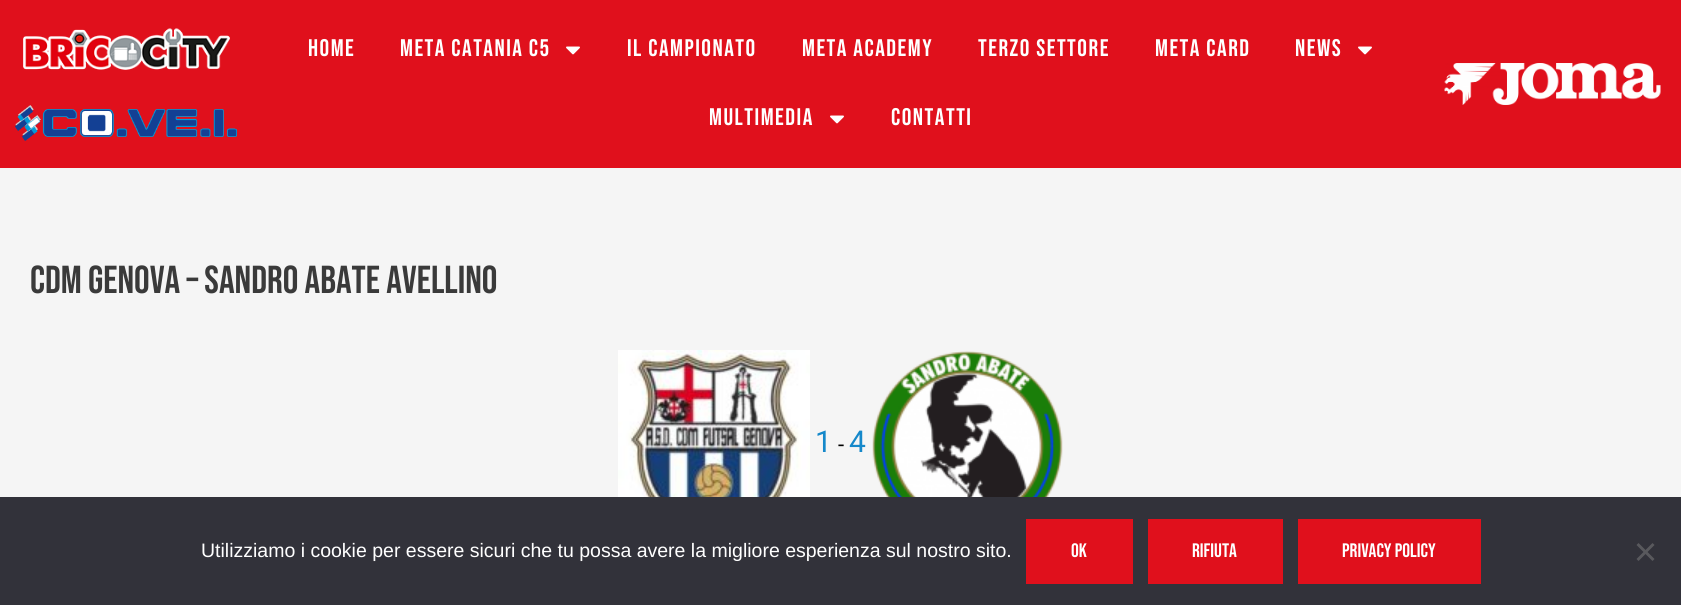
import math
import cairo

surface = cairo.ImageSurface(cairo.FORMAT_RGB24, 1681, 605)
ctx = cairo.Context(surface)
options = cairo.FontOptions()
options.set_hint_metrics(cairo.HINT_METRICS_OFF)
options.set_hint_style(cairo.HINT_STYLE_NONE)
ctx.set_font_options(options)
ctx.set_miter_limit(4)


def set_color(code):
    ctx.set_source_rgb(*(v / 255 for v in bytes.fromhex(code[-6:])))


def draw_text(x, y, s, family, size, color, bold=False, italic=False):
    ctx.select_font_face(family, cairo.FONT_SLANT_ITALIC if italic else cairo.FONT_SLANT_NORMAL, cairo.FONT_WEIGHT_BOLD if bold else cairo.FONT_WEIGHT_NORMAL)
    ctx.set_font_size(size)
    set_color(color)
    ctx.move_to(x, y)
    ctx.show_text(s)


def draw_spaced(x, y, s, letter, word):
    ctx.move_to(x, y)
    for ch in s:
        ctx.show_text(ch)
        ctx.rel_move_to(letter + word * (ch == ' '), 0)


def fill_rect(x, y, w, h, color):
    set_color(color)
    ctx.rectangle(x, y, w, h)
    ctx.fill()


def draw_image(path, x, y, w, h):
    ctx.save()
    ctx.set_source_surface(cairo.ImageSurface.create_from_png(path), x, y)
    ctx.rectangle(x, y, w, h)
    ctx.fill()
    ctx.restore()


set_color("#f5f5f5")
ctx.paint()
fill_rect(0, 0, 1681, 168, "#e0101c")
draw_image("assets/img1.png", 23, 28, 207, 42)
draw_image("assets/img2.png", 15, 105, 222, 36)
ctx.select_font_face("Bebas Neue")
ctx.set_font_size(24)
set_color("#ffffff")
draw_spaced(308, 56, "HOME", 1.5, 0)
draw_spaced(400, 56, "META CATANIA C5", 1.5, 0)
draw_image("assets/img3.png", 566, 46, 14, 9)
draw_spaced(627, 56, "IL CAMPIONATO", 1.5, 0)
draw_spaced(802, 56, "META ACADEMY", 1.5, 0)
draw_spaced(978, 56, "TERZO SETTORE", 1.5, 0)
draw_spaced(1155, 56, "META CARD", 1.5, 0)
draw_spaced(1295, 56, "NEWS", 1.5, 0)
draw_image("assets/img3.png", 1358, 46, 14, 9)
draw_spaced(709, 125, "MULTIMEDIA", 1.5, 0)
draw_image("assets/img3.png", 830, 115, 14, 9)
draw_spaced(891, 125, "CONTATTI", 1.5, 0)
draw_image("assets/img4.png", 1444, 63, 217, 42)
draw_text(30, 293, "CDM Genova – Sandro Abate Avellino", "Bebas Neue", 39, "#3a3a3a")
draw_image("assets/img5.png", 618, 350, 192, 147)
draw_text(815, 452, "1", "Roboto", 30, "#1588ca")
draw_text(838, 452, "-", "Roboto", 22, "#000000")
draw_text(849, 452, "4", "Roboto", 30, "#1588ca")
draw_image("assets/img6.png", 872, 351, 191, 146)
fill_rect(0, 497, 1681, 108, "#32323a")
draw_text(201, 557, "Utilizziamo i cookie per essere sicuri che tu possa avere la migliore esperienza sul nostro sito.", "Liberation Sans", 19.5, "#ffffff")
fill_rect(1026, 519, 107, 65, "#e0101c")
draw_text(1071, 557, "Ok", "Bebas Neue", 19.5, "#ffffff")
fill_rect(1148, 519, 135, 65, "#e0101c")
draw_text(1192, 557, "Rifiuta", "Bebas Neue", 19.5, "#ffffff")
fill_rect(1298, 519, 183, 65, "#e0101c")
draw_text(1342, 557, "Privacy policy", "Bebas Neue", 19.5, "#ffffff")
set_color("#59595d")
ctx.new_path()
ctx.move_to(1652.5, 543)
ctx.line_to(1654.5, 545)
ctx.line_to(1638.5, 561)
ctx.line_to(1636.5, 559)
ctx.close_path()
ctx.fill()
ctx.new_path()
ctx.move_to(1636.5, 545)
ctx.line_to(1638.5, 543)
ctx.line_to(1654.5, 559)
ctx.line_to(1652.5, 561)
ctx.close_path()
ctx.fill()
surface.write_to_png("output.png")
